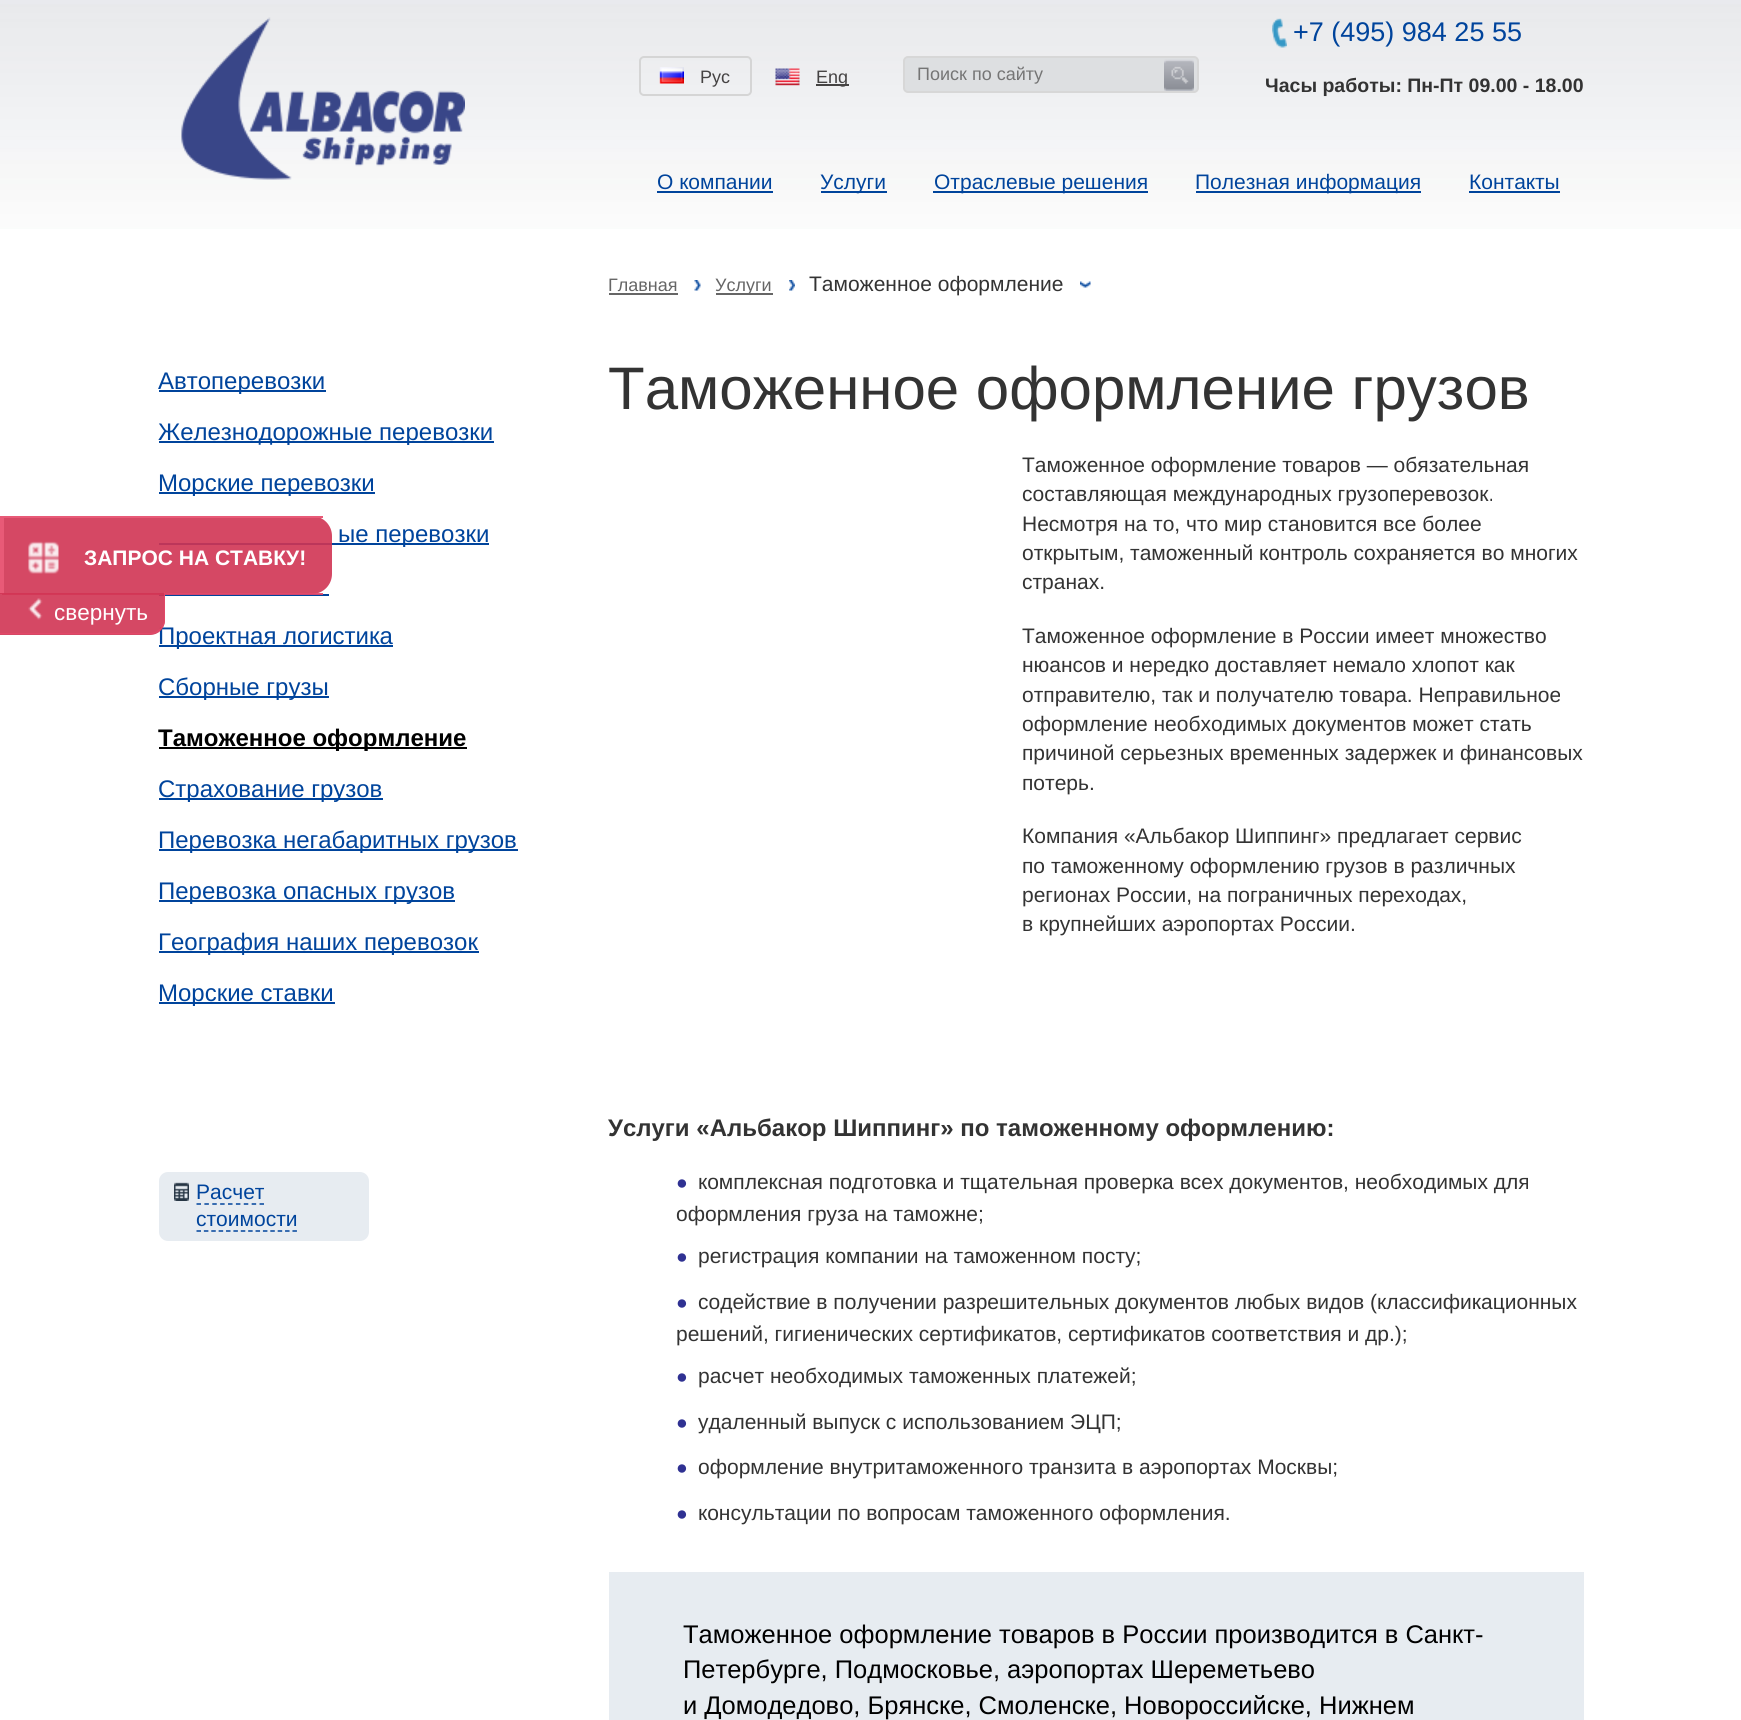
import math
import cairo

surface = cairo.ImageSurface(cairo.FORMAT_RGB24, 1741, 1720)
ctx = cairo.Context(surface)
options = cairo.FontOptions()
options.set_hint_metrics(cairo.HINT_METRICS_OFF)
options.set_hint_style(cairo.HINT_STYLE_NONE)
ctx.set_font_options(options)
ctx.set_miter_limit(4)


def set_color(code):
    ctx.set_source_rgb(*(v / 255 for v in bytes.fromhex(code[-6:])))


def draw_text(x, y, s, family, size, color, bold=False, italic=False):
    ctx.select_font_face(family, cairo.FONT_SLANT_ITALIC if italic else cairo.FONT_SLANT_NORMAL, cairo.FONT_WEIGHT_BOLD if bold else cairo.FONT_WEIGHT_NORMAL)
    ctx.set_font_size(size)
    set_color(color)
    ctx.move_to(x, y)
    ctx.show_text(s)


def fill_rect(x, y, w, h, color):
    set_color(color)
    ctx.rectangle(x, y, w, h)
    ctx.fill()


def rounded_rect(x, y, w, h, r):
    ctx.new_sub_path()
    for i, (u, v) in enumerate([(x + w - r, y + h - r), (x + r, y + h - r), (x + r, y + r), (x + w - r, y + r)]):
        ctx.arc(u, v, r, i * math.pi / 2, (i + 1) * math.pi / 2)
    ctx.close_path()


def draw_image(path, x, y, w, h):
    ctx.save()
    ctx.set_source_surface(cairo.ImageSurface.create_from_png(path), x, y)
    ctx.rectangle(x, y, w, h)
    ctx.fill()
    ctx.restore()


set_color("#ffffff")
ctx.paint()
draw_image("assets/img1.png", 0, 0, 1741, 229)
draw_image("assets/img2.png", 181, 17, 284, 163)
draw_image("assets/img3.png", 659, 67, 25, 17)
rounded_rect(640, 57, 111, 38, 4)
set_color("#d5d5d5")
ctx.stroke()
draw_text(700, 83, "Рус", "Liberation Sans", 18, "#454343")
draw_image("assets/img4.png", 775, 68, 25, 18)
fill_rect(816, 84, 33, 2, "#454343")
draw_text(816, 83, "Eng", "Liberation Sans", 18, "#454343")
set_color("#dddfe1")
rounded_rect(904, 57, 294, 35, 4)
ctx.fill_preserve()
set_color("#d7d7d7")
ctx.stroke()
draw_text(917, 80, "Поиск по сайту", "Liberation Sans", 18, "#757575")
draw_image("assets/img5.png", 1164, 59, 30, 32)
draw_image("assets/img6.png", 1272, 18, 15, 30)
draw_text(1293, 41, "+7 (495) 984 25 55", "Liberation Sans", 27, "#00449c")
draw_text(1265, 92, "Часы работы: Пн-Пт 09.00 - 18.00", "Liberation Sans", 19.5, "#333333", bold=True)
draw_text(657, 189, "O компании", "Liberation Sans", 21, "#00449c")
fill_rect(657, 191, 116, 2, "#00449c")
fill_rect(821, 191, 66, 2, "#00449c")
draw_text(820, 189, "Услуги", "Liberation Sans", 21, "#00449c")
fill_rect(933, 191, 215, 2, "#00449c")
draw_text(934, 189, "Отраслевые решения", "Liberation Sans", 21, "#00449c")
fill_rect(1196, 191, 225, 2, "#00449c")
draw_text(1195, 189, "Полезная информация", "Liberation Sans", 21, "#00449c")
draw_text(1469, 189, "Контакты", "Liberation Sans", 21, "#00449c")
fill_rect(1469, 191, 91, 2, "#00449c")
fill_rect(159, 390, 167, 2, "#00449c")
draw_text(158, 389, "Автоперевозки", "Liberation Sans", 24, "#00449c")
fill_rect(159, 441, 335, 2, "#00449c")
draw_text(158, 440, "Железнодорожные перевозки", "Liberation Sans", 24, "#00449c")
fill_rect(159, 492, 216, 2, "#00449c")
draw_text(158, 491, "Морские перевозки", "Liberation Sans", 24, "#00449c")
fill_rect(159, 543, 330, 2, "#00449c")
draw_text(338, 542, "ые перевозки", "Liberation Sans", 24, "#00449c")
fill_rect(159, 594, 170, 2, "#00449c")
fill_rect(159, 645, 234, 2, "#00449c")
draw_text(158, 644, "Проектная логистика", "Liberation Sans", 24, "#00449c")
fill_rect(159, 696, 170, 2, "#00449c")
draw_text(158, 695, "Сборные грузы", "Liberation Sans", 24, "#00449c")
fill_rect(159, 747, 308, 2, "#000000")
draw_text(158, 746, "Таможенное оформление", "Liberation Sans", 24, "#000000", bold=True)
fill_rect(159, 798, 224, 2, "#00449c")
draw_text(158, 797, "Страхование грузов", "Liberation Sans", 24, "#00449c")
fill_rect(159, 849, 359, 2, "#00449c")
draw_text(158, 848, "Перевозка негабаритных грузов", "Liberation Sans", 24, "#00449c")
fill_rect(159, 900, 296, 2, "#00449c")
draw_text(158, 899, "Перевозка опасных грузов", "Liberation Sans", 24, "#00449c")
fill_rect(159, 951, 320, 2, "#00449c")
draw_text(158, 950, "География наших перевозок", "Liberation Sans", 24, "#00449c")
fill_rect(159, 1002, 176, 2, "#00449c")
draw_text(158, 1001, "Морские ставки", "Liberation Sans", 24, "#00449c")
set_color("#e7ecf1")
rounded_rect(159, 1172, 210, 69, 9)
ctx.fill()
draw_image("assets/img7.png", 174, 1182, 15, 19)
draw_text(196, 1199, "Расчет", "Liberation Sans", 21, "#00449c")
ctx.new_path()
ctx.move_to(196.5, 1204)
ctx.line_to(264, 1204)
ctx.set_line_width(1.5)
ctx.set_dash([4.5, 3.38])
ctx.stroke()
draw_text(196, 1226, "стоимости", "Liberation Sans", 21, "#00449c")
ctx.new_path()
ctx.move_to(196.5, 1231)
ctx.line_to(297, 1231)
ctx.set_dash([4.5, 2.88])
ctx.stroke()
draw_text(608, 291, "Главная", "Liberation Sans", 18, "#666666")
fill_rect(609, 293, 69, 2, "#666666")
draw_image("assets/img8.png", 694, 280, 7, 11)
fill_rect(716, 293, 57, 2, "#666666")
draw_text(715, 291, "Услуги", "Liberation Sans", 18, "#666666")
draw_image("assets/img9.png", 789, 280, 6, 11)
draw_text(809, 291, "Таможенное оформление", "Liberation Sans", 21, "#333333")
draw_image("assets/img10.png", 1080, 281, 11, 7)
draw_text(608, 409, "Таможенное оформление грузов", "Liberation Sans", 60, "#333333")
draw_text(1022, 472, "Таможенное оформление товаров — обязательная", "Liberation Sans", 21, "#333333")
draw_text(1022, 501, "составляющая международных грузоперевозок.", "Liberation Sans", 21, "#333333")
draw_text(1022, 531, "Несмотря на то, что мир становится все более", "Liberation Sans", 21, "#333333")
draw_text(1022, 560, "открытым, таможенный контроль сохраняется во многих", "Liberation Sans", 21, "#333333")
draw_text(1022, 589, "странах.", "Liberation Sans", 21, "#333333")
draw_text(1022, 643, "Таможенное оформление в России имеет множество", "Liberation Sans", 21, "#333333")
draw_text(1022, 672, "нюансов и нередко доставляет немало хлопот как", "Liberation Sans", 21, "#333333")
draw_text(1022, 702, "отправителю, так и получателю товара. Неправильное", "Liberation Sans", 21, "#333333")
draw_text(1022, 731, "оформление необходимых документов может стать", "Liberation Sans", 21, "#333333")
draw_text(1022, 760, "причиной серьезных временных задержек и финансовых", "Liberation Sans", 21, "#333333")
draw_text(1022, 790, "потерь.", "Liberation Sans", 21, "#333333")
draw_text(1022, 843, "Компания «Альбакор Шиппинг» предлагает сервис", "Liberation Sans", 21, "#333333")
draw_text(1022, 873, "по таможенному оформлению грузов в различных", "Liberation Sans", 21, "#333333")
draw_text(1022, 902, "регионах России, на пограничных переходах,", "Liberation Sans", 21, "#333333")
draw_text(1022, 931, "в крупнейших аэропортах России.", "Liberation Sans", 21, "#333333")
draw_text(608, 1136, "Услуги «Альбакор Шиппинг» по таможенному оформлению:", "Liberation Sans", 24, "#333333", bold=True)
draw_text(676, 1189, "●", "Liberation Sans", 19.5, "#2f3192")
draw_text(698, 1189, "комплексная подготовка и тщательная проверка всех документов, необходимых для", "Liberation Sans", 21, "#333333")
draw_text(676, 1221, "оформления груза на таможне;", "Liberation Sans", 21, "#333333")
draw_text(676, 1263, "●", "Liberation Sans", 19.5, "#2f3192")
draw_text(698, 1263, "регистрация компании на таможенном посту;", "Liberation Sans", 21, "#333333")
draw_text(676, 1309, "●", "Liberation Sans", 19.5, "#2f3192")
draw_text(698, 1309, "содействие в получении разрешительных документов любых видов (классификационных", "Liberation Sans", 21, "#333333")
draw_text(676, 1341, "решений, гигиенических сертификатов, сертификатов соответствия и др.);", "Liberation Sans", 21, "#333333")
draw_text(676, 1383, "●", "Liberation Sans", 19.5, "#2f3192")
draw_text(698, 1383, "расчет необходимых таможенных платежей;", "Liberation Sans", 21, "#333333")
draw_text(676, 1429, "●", "Liberation Sans", 19.5, "#2f3192")
draw_text(698, 1429, "удаленный выпуск с использованием ЭЦП;", "Liberation Sans", 21, "#333333")
draw_text(676, 1474, "●", "Liberation Sans", 19.5, "#2f3192")
draw_text(698, 1474, "оформление внутритаможенного транзита в аэропортах Москвы;", "Liberation Sans", 21, "#333333")
draw_text(676, 1520, "●", "Liberation Sans", 19.5, "#2f3192")
draw_text(698, 1520, "консультации по вопросам таможенного оформления.", "Liberation Sans", 21, "#333333")
fill_rect(609, 1572, 975, 148, "#e7ecf1")
draw_text(683, 1643, "Таможенное оформление товаров в России производится в Санкт-", "Liberation Sans", 25.5, "#000000")
draw_text(683, 1678, "Петербурге, Подмосковье, аэропортах Шереметьево", "Liberation Sans", 25.5, "#000000")
draw_text(683, 1714, "и Домодедово, Брянске, Смоленске, Новороссийске, Нижнем", "Liberation Sans", 25.5, "#000000")
fill_rect(0, 516, 2, 78, "#e85a77")
ctx.set_source_rgba(0.82, 0.204, 0.329, 0.9)
ctx.new_path()
ctx.move_to(2, 516)
ctx.line_to(312, 516)
ctx.curve_to(323, 516, 332, 525, 332, 536)
ctx.line_to(332, 574)
ctx.curve_to(332, 585, 323, 594, 312, 594)
ctx.line_to(2, 594)
ctx.close_path()
ctx.fill()
fill_rect(2, 516, 321, 2, "#e85a77")
ctx.set_source_rgba(0.898, 0.282, 0.408, 0.9)
ctx.rectangle(2, 593, 321, 2)
ctx.fill()
fill_rect(2, 516, 2, 78, "#e85a77")
draw_image("assets/img11.png", 28, 541, 31, 33)
draw_text(84, 565, "ЗАПРОС НА СТАВКУ!", "Liberation Sans", 21, "#ffffff", bold=True)
ctx.set_source_rgba(0.82, 0.204, 0.329, 0.9)
ctx.new_path()
ctx.move_to(0, 593)
ctx.line_to(165, 593)
ctx.line_to(165, 620)
ctx.curve_to(165, 628.5, 158.5, 635, 150, 635)
ctx.line_to(0, 635)
ctx.close_path()
ctx.fill()
draw_image("assets/img12.png", 28, 598, 15, 22)
ctx.set_source_rgba(0.898, 0.282, 0.408, 0.9)
ctx.set_fill_rule(cairo.FILL_RULE_EVEN_ODD)
ctx.new_path()
ctx.move_to(0, 592)
ctx.line_to(165, 592)
ctx.line_to(165, 620)
ctx.curve_to(165, 628, 158, 634, 150, 634)
ctx.line_to(0, 634)
ctx.close_path()
ctx.move_to(0, 592)
ctx.line_to(164, 592)
ctx.line_to(164, 620)
ctx.curve_to(164, 627, 157, 633, 150, 633)
ctx.line_to(0, 633)
ctx.close_path()
ctx.fill()
draw_text(54, 620, "свернуть", "Liberation Sans", 22.5, "#ffffff")
surface.write_to_png("output.png")
